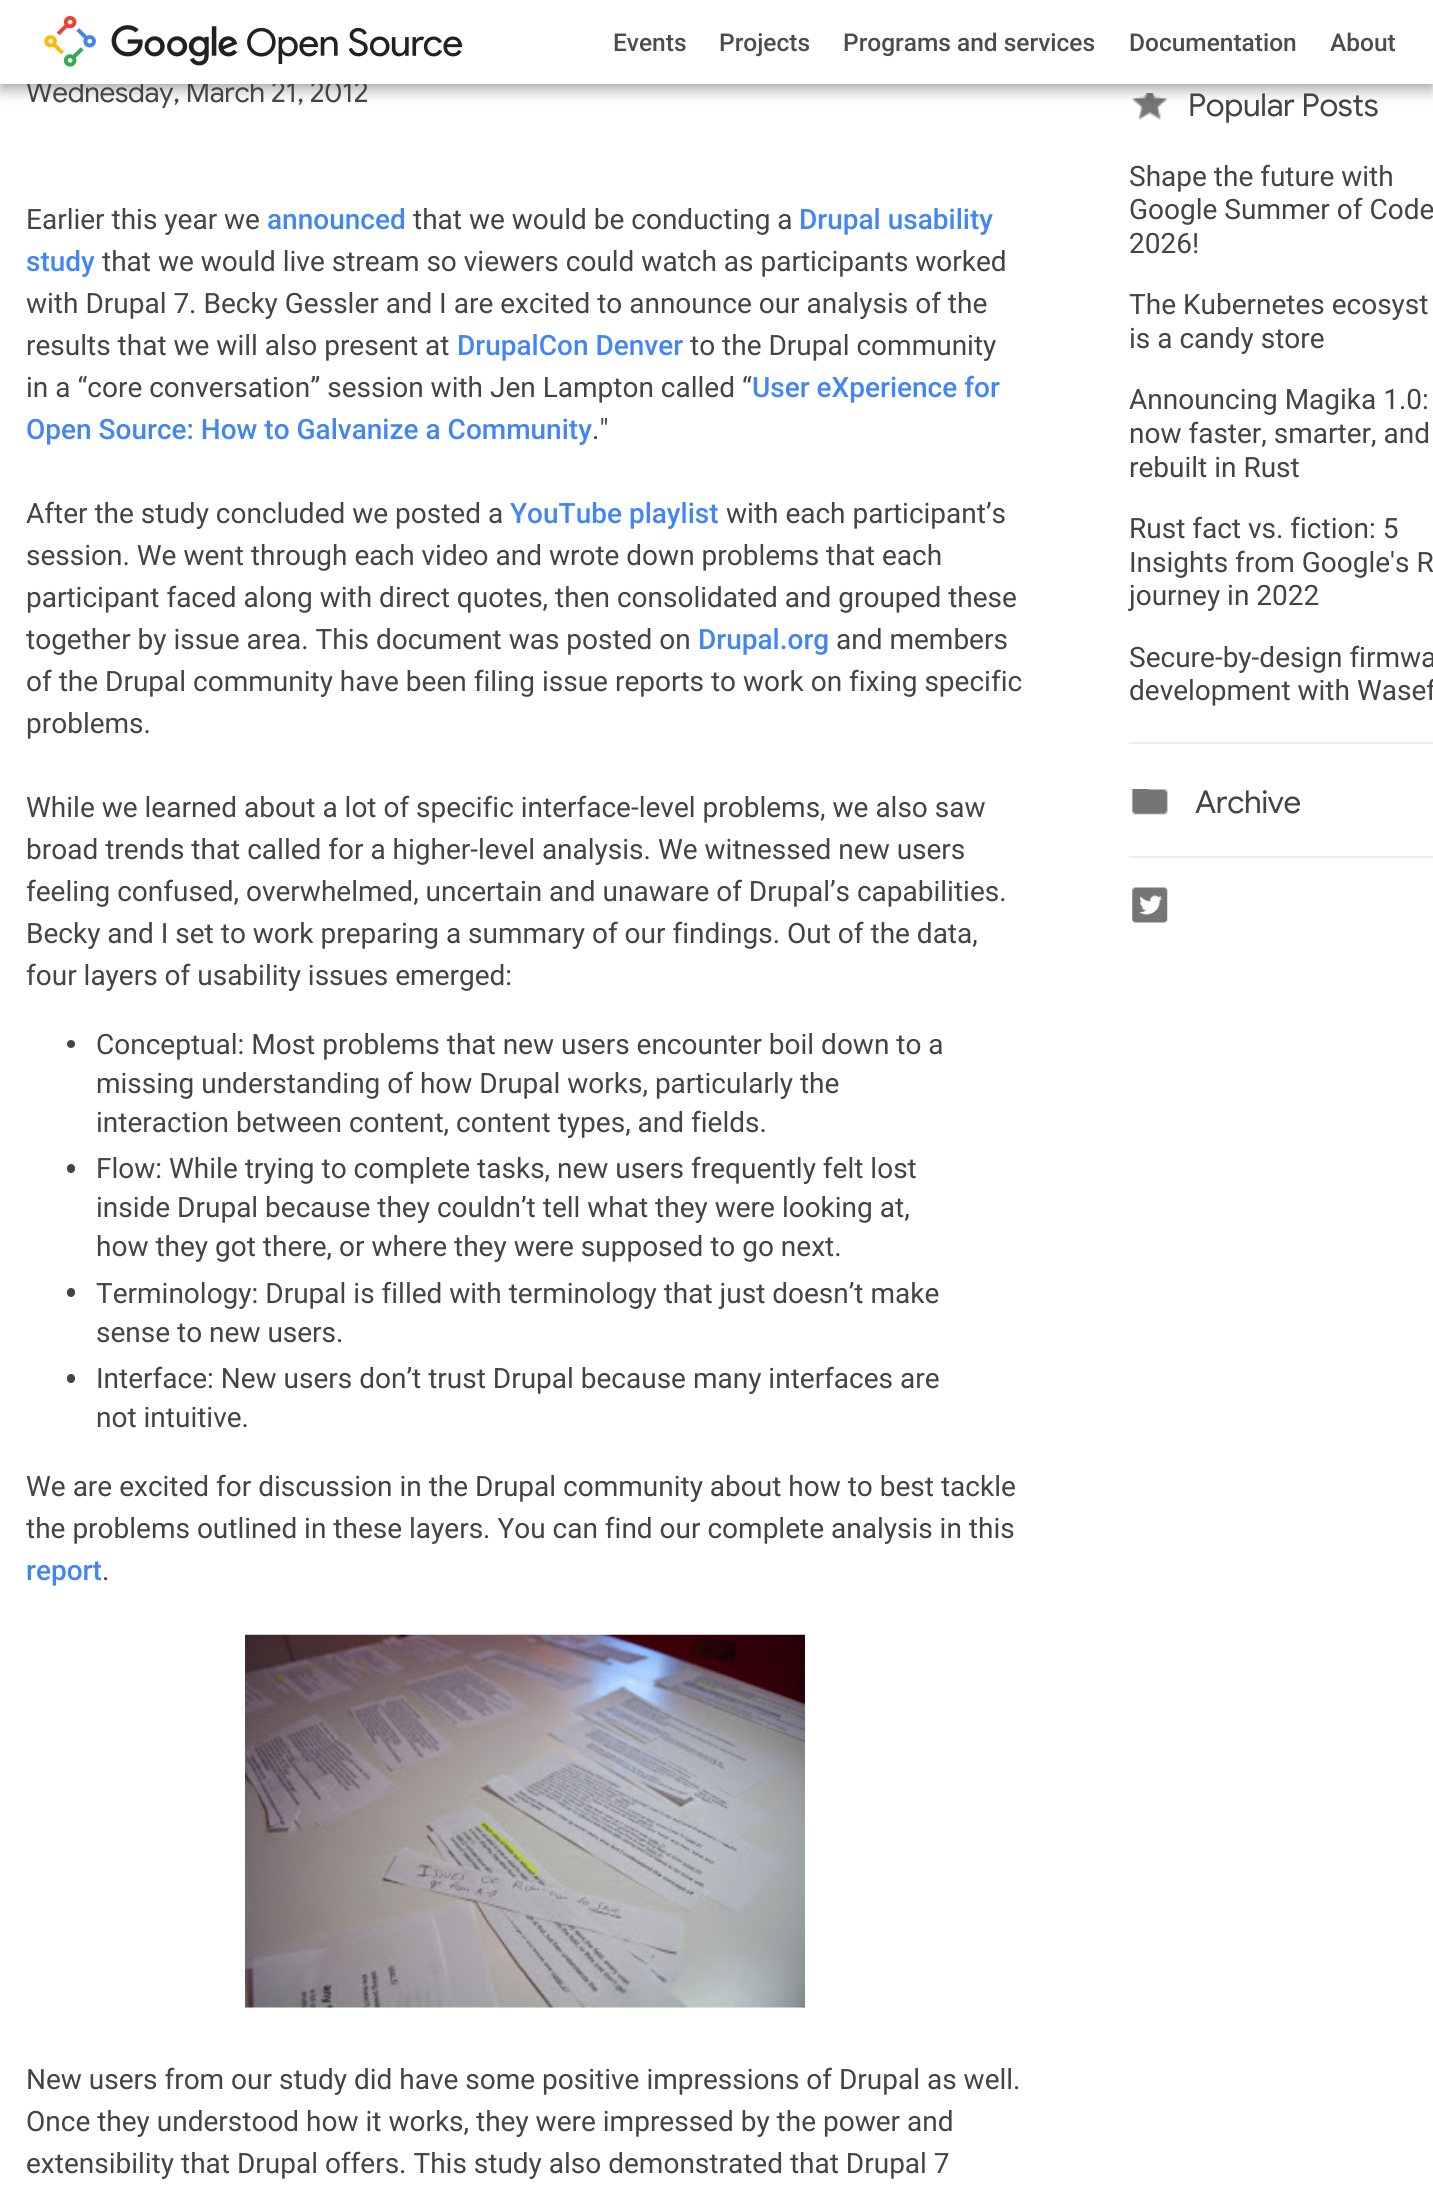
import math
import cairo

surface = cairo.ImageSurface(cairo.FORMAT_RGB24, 1433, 2199)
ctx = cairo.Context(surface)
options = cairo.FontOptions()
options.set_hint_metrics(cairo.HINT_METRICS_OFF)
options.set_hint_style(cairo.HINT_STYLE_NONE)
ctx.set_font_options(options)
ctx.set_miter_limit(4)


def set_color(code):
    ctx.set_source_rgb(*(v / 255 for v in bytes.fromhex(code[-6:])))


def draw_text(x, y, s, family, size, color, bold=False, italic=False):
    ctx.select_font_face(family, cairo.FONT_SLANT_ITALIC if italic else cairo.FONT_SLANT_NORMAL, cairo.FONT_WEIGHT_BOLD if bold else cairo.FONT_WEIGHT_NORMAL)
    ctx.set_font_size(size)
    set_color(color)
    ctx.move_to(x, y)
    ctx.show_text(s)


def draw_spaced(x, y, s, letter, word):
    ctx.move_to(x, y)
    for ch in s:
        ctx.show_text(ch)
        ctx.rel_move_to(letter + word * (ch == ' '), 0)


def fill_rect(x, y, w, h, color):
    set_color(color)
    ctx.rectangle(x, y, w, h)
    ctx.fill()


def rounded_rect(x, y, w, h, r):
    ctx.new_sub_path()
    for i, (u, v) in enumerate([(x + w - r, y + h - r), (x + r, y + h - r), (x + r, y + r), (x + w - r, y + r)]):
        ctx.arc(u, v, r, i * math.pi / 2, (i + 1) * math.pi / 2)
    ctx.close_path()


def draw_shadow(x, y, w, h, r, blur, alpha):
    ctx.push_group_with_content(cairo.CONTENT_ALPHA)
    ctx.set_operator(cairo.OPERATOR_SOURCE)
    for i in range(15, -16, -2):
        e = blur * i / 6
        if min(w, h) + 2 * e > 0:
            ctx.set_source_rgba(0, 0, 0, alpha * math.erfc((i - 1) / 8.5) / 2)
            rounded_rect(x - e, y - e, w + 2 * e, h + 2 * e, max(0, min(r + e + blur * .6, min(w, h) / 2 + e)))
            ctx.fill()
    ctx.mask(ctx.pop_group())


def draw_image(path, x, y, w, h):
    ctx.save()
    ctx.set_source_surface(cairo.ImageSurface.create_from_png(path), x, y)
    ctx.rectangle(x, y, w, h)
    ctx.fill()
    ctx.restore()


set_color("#ffffff")
ctx.paint()
draw_image("assets/img3.png", 1132, 93, 36, 27)
set_color("#000000")
draw_shadow(0, 7, 1433, 84, 0, 7, 0.28)
draw_shadow(0, 0, 1433, 84, 0, 3.5, 0.14)
ctx.select_font_face("Google Sans")
ctx.set_font_size(28)
set_color("#444444")
draw_spaced(26, 102, "Wednesday, March 21, 2012", -0.25, 0)
fill_rect(0, 0, 1433, 84, "#ffffff")
draw_image("assets/img1.png", 44, 15, 419, 52)
draw_text(613, 51, "Events", "Roboto Medium", 24.5, "#4c4c4c")
draw_text(719, 51, "Projects", "Roboto Medium", 24.5, "#4c4c4c")
draw_text(843, 51, "Programs and services", "Roboto Medium", 24.5, "#4c4c4c")
draw_text(1129, 51, "Documentation", "Roboto Medium", 24.5, "#4c4c4c")
draw_text(1330, 51, "About", "Roboto Medium", 24.5, "#4c4c4c")
draw_text(26, 229, "Earlier this year we", "Roboto", 28, "#444444")
draw_text(267, 229, "announced", "Roboto Medium", 28, "#4285f4")
draw_text(413, 229, "that we would be conducting a", "Roboto", 28, "#444444")
draw_text(799, 229, "Drupal usability", "Roboto Medium", 28, "#4285f4")
draw_text(26, 271, "study", "Roboto Medium", 28, "#4285f4")
draw_text(102, 271, "that we would live stream so viewers could watch as participants worked", "Roboto", 28, "#444444")
draw_text(26, 313, "with Drupal 7. Becky Gessler and I are excited to announce our analysis of the", "Roboto", 28, "#444444")
draw_text(26, 355, "results that we will also present at", "Roboto", 28, "#444444")
draw_text(457, 355, "DrupalCon Denver", "Roboto Medium", 28, "#4285f4")
draw_text(690, 355, "to the Drupal community", "Roboto", 28, "#444444")
draw_text(26, 397, "in a “core conversation” session with Jen Lampton called “", "Roboto", 28, "#444444")
draw_text(752, 397, "User eXperience for", "Roboto Medium", 28, "#4285f4")
draw_text(26, 439, "Open Source: How to Galvanize a Community", "Roboto Medium", 28, "#4285f4")
draw_text(592, 439, ".\"", "Roboto", 28, "#444444")
draw_text(26, 523, "After the study concluded we posted a", "Roboto", 28, "#444444")
draw_text(510, 523, "YouTube playlist", "Roboto Medium", 28, "#4285f4")
draw_text(726, 523, "with each participant’s", "Roboto", 28, "#444444")
draw_text(26, 565, "session. We went through each video and wrote down problems that each", "Roboto", 28, "#444444")
draw_text(26, 607, "participant faced along with direct quotes, then consolidated and grouped these", "Roboto", 28, "#444444")
draw_text(26, 649, "together by issue area. This document was posted on", "Roboto", 28, "#444444")
draw_text(698, 649, "Drupal.org", "Roboto Medium", 28, "#4285f4")
draw_text(836, 649, "and members", "Roboto", 28, "#444444")
draw_text(26, 691, "of the Drupal community have been filing issue reports to work on fixing specific", "Roboto", 28, "#444444")
draw_text(26, 733, "problems.", "Roboto", 28, "#444444")
draw_text(26, 817, "While we learned about a lot of specific interface-level problems, we also saw", "Roboto", 28, "#444444")
draw_text(26, 859, "broad trends that called for a higher-level analysis. We witnessed new users", "Roboto", 28, "#444444")
draw_text(26, 901, "feeling confused, overwhelmed, uncertain and unaware of Drupal’s capabilities.", "Roboto", 28, "#444444")
draw_text(26, 943, "Becky and I set to work preparing a summary of our findings. Out of the data,", "Roboto", 28, "#444444")
draw_text(26, 985, "four layers of usability issues emerged:", "Roboto", 28, "#444444")
ctx.new_path()
ctx.arc(71, 1044, 4, 0, 2 * math.pi)
ctx.fill()
draw_text(96, 1054, "Conceptual: Most problems that new users encounter boil down to a", "Roboto", 28, "#444444")
draw_text(96, 1093, "missing understanding of how Drupal works, particularly the", "Roboto", 28, "#444444")
draw_text(96, 1132, "interaction between content, content types, and fields.", "Roboto", 28, "#444444")
rounded_rect(67, 1164, 8, 9, 4)
ctx.fill()
draw_text(96, 1178, "Flow: While trying to complete tasks, new users frequently felt lost", "Roboto", 28, "#444444")
draw_text(96, 1217, "inside Drupal because they couldn’t tell what they were looking at,", "Roboto", 28, "#444444")
draw_text(96, 1256, "how they got there, or where they were supposed to go next.", "Roboto", 28, "#444444")
rounded_rect(67, 1288, 8, 9, 4)
ctx.fill()
draw_text(96, 1303, "Terminology: Drupal is filled with terminology that just doesn’t make", "Roboto", 28, "#444444")
draw_text(96, 1342, "sense to new users.", "Roboto", 28, "#444444")
rounded_rect(67, 1374, 8, 9, 4)
ctx.fill()
draw_text(96, 1388, "Interface: New users don’t trust Drupal because many interfaces are", "Roboto", 28, "#444444")
draw_text(96, 1427, "not intuitive.", "Roboto", 28, "#444444")
draw_text(26, 1496, "We are excited for discussion in the Drupal community about how to best tackle", "Roboto", 28, "#444444")
draw_text(26, 1538, "the problems outlined in these layers. You can find our complete analysis in this", "Roboto", 28, "#444444")
draw_text(26, 1580, "report", "Roboto Medium", 28, "#4285f4")
draw_text(102, 1580, ".", "Roboto", 28, "#444444")
draw_image("assets/img2.png", 245, 1634, 560, 374)
draw_text(26, 2089, "New users from our study did have some positive impressions of Drupal as well.", "Roboto", 28, "#444444")
draw_text(26, 2131, "Once they understood how it works, they were impressed by the power and", "Roboto", 28, "#444444")
draw_text(26, 2173, "extensibility that Drupal offers. This study also demonstrated that Drupal 7", "Roboto", 28, "#444444")
fill_rect(1129, 742, 304, 2, "#eeeeee")
ctx.select_font_face("Google Sans")
ctx.set_font_size(31.5)
set_color("#444444")
draw_spaced(1188, 116, "Popular Posts", -0.25, 0)
draw_text(1129, 186, "Shape the future with", "Roboto", 28, "#444444")
draw_text(1129, 219, "Google Summer of Code", "Roboto", 28, "#444444")
draw_text(1129, 253, "2026!", "Roboto", 28, "#444444")
draw_text(1129, 314, "The Kubernetes ecosyst", "Roboto", 28, "#444444")
draw_text(1129, 348, "is a candy store", "Roboto", 28, "#444444")
draw_text(1129, 409, "Announcing Magika 1.0:", "Roboto", 28, "#444444")
draw_text(1129, 443, "now faster, smarter, and", "Roboto", 28, "#444444")
draw_text(1129, 477, "rebuilt in Rust", "Roboto", 28, "#444444")
draw_text(1129, 538, "Rust fact vs. fiction: 5", "Roboto", 28, "#444444")
draw_text(1129, 572, "Insights from Google's R", "Roboto", 28, "#444444")
draw_text(1129, 605, "journey in 2022", "Roboto", 28, "#444444")
draw_text(1129, 667, "Secure-by-design firmwa", "Roboto", 28, "#444444")
draw_text(1129, 700, "development with Wasef", "Roboto", 28, "#444444")
fill_rect(1129, 856, 304, 2, "#eeeeee")
draw_image("assets/img4.png", 1131, 789, 37, 26)
ctx.select_font_face("Google Sans")
ctx.set_font_size(31.5)
set_color("#444444")
draw_spaced(1195, 813, "Archive", -0.25, 0)
draw_image("assets/img5.png", 1132, 887, 36, 36)
surface.write_to_png("output.png")
